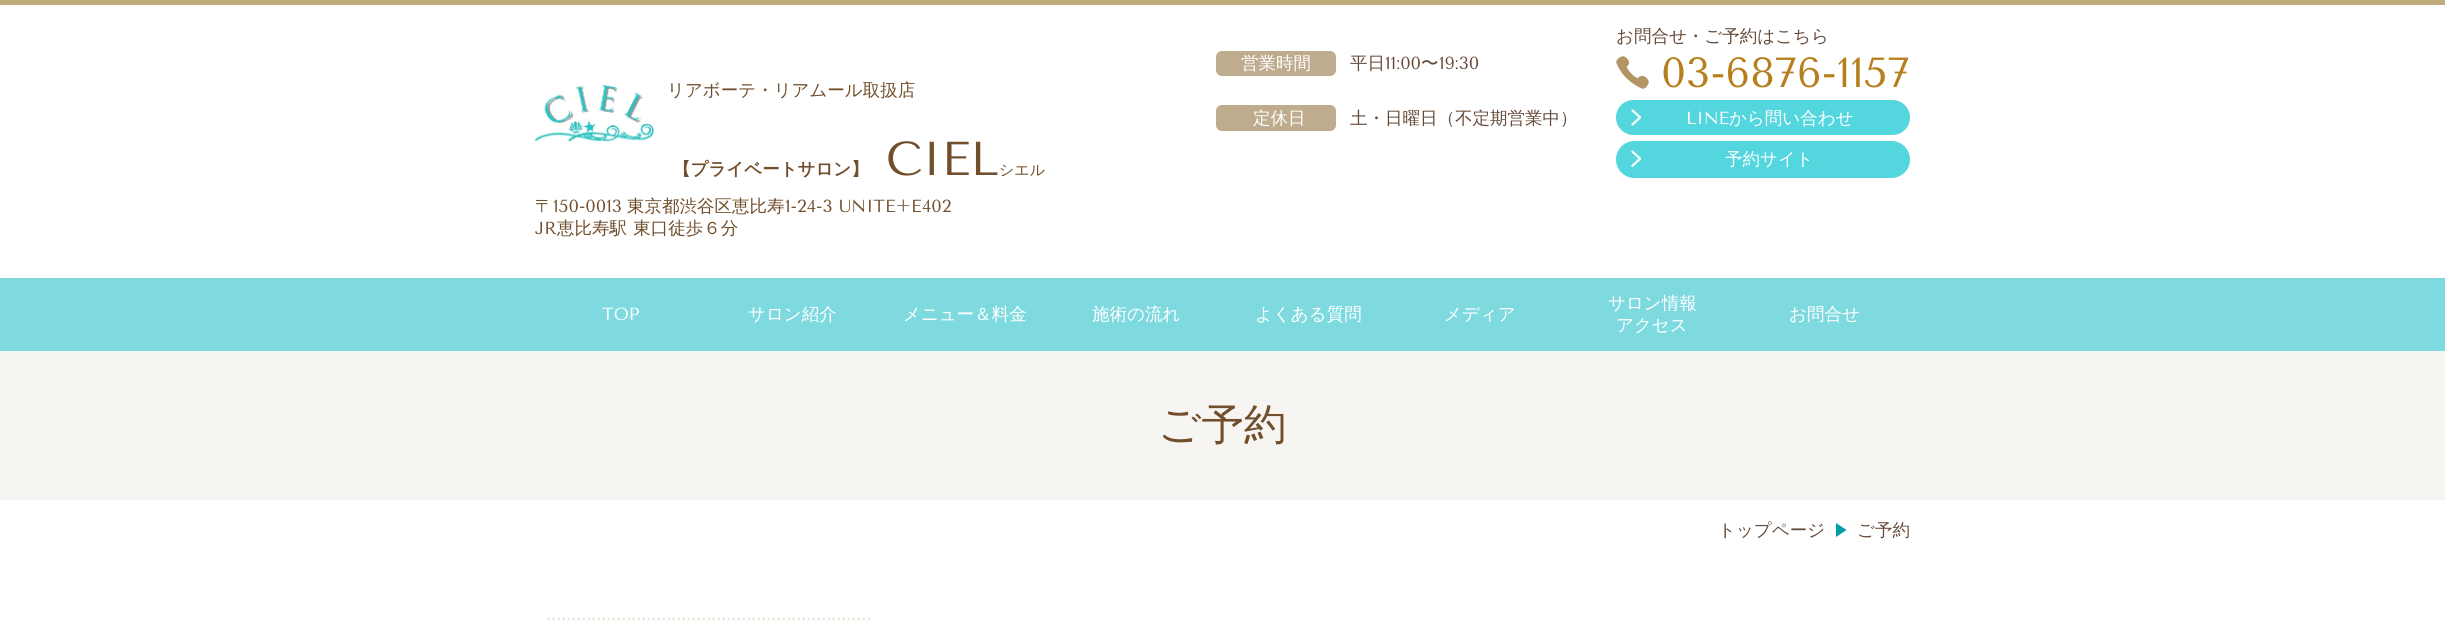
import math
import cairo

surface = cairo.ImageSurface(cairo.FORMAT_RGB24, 2445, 621)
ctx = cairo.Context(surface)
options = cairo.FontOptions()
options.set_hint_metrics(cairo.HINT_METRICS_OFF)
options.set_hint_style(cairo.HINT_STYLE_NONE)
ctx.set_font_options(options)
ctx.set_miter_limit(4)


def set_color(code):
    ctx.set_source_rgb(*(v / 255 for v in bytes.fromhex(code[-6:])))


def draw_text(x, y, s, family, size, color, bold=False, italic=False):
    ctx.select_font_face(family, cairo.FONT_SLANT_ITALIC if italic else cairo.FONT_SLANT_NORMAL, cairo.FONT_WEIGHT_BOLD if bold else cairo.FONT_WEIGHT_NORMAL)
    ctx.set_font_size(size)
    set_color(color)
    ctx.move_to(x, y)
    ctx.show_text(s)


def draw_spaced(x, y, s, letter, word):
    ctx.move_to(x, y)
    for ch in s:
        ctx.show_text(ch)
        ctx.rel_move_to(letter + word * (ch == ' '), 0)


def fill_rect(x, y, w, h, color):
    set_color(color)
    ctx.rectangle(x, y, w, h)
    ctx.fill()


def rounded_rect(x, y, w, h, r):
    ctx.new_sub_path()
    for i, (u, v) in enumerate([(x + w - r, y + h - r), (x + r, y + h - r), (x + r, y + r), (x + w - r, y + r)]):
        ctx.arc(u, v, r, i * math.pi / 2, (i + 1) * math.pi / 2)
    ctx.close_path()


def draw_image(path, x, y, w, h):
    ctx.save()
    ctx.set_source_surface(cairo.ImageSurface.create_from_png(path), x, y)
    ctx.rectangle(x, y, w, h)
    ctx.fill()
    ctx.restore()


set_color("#ffffff")
ctx.paint()
fill_rect(0, 0, 2445, 5, "#bead7a")
draw_image("assets/img1.png", 535, 85, 119, 57)
draw_text(667, 96, "リアボーテ・リアムール取扱店", "WenQuanYi Zen Hei Medium", 17.5, "#714f2d")
draw_text(673, 175, "【プライベートサロン】", "WenQuanYi Zen Hei", 17.5, "#714f2d", bold=True)
draw_text(886, 175, "CIEL", "Tenor Sans", 47.5, "#714f2d")
draw_text(999, 175, "シエル", "WenQuanYi Zen Hei Medium", 15, "#714f2d")
draw_text(535, 212, "〒", "WenQuanYi Zen Hei Medium", 17.5, "#714f2d")
draw_text(553, 212, "150-0013", "Tenor Sans", 17.5, "#714f2d")
draw_text(627, 212, "東京都渋谷区恵比寿", "WenQuanYi Zen Hei Medium", 17.5, "#714f2d")
draw_text(785, 212, "1-24-3 UNITE+E402", "Tenor Sans", 17.5, "#714f2d")
draw_text(535, 234, "JR", "Tenor Sans", 17.5, "#714f2d")
ctx.select_font_face("WenQuanYi Zen Hei Medium")
draw_spaced(557, 234, "恵比寿駅 東口徒歩６分", 0, 1)
set_color("#bfab8d")
rounded_rect(1216, 51, 120, 25, 6)
ctx.fill()
draw_text(1241, 69, "営業時間", "WenQuanYi Zen Hei Medium", 17.5, "#ffffff")
draw_text(1350, 69, "平日", "WenQuanYi Zen Hei Medium", 17.5, "#664b3a")
draw_text(1385, 69, "11:00", "Tenor Sans", 17.5, "#664b3a")
draw_text(1421, 69, "〜", "WenQuanYi Zen Hei Medium", 17.5, "#664b3a")
draw_text(1439, 69, "19:30", "Tenor Sans", 17.5, "#664b3a")
set_color("#bfab8d")
rounded_rect(1216, 105, 120, 26, 6)
ctx.fill()
draw_text(1253, 124, "定休日", "WenQuanYi Zen Hei Medium", 17.5, "#ffffff")
draw_text(1350, 124, "土・日曜日（不定期営業中）", "WenQuanYi Zen Hei Medium", 17.5, "#664b3a")
draw_text(1616, 42, "お問合せ・ご予約はこちら", "WenQuanYi Zen Hei Medium", 17.5, "#664b3a")
draw_image("assets/img2.png", 1616, 56, 33, 33)
draw_text(1661, 87, "03-6876-1157", "Tenor Sans", 42, "#b67f1d")
set_color("#53d6de")
rounded_rect(1617.5, 101.5, 291, 32, 16)
ctx.fill_preserve()
ctx.set_line_width(3)
ctx.stroke()
draw_image("assets/img3.png", 1631, 109, 10, 17)
draw_text(1686, 124, "LINE", "Tenor Sans", 17.5, "#ffffff")
draw_text(1729, 124, "から問い合わせ", "WenQuanYi Zen Hei Medium", 17.5, "#ffffff")
set_color("#53d6de")
rounded_rect(1617.5, 142.5, 291, 34, 17)
ctx.fill_preserve()
ctx.stroke()
draw_image("assets/img4.png", 1631, 150, 10, 17)
draw_text(1725, 165, "予約サイト", "WenQuanYi Zen Hei Medium", 17.5, "#ffffff")
fill_rect(0, 278, 2445, 73, "#7fdae0")
draw_text(602, 320, "TOP", "Tenor Sans", 17.5, "#ffffff")
draw_text(748, 320, "サロン紹介", "WenQuanYi Zen Hei Medium", 17.5, "#ffffff")
draw_text(903, 320, "メニュー＆料金", "WenQuanYi Zen Hei Medium", 17.5, "#ffffff")
draw_text(1092, 320, "施術の流れ", "WenQuanYi Zen Hei Medium", 17.5, "#ffffff")
draw_text(1255, 320, "よくある質問", "WenQuanYi Zen Hei Medium", 17.5, "#ffffff")
draw_text(1444, 320, "メディア", "WenQuanYi Zen Hei Medium", 17.5, "#ffffff")
draw_text(1608, 309, "サロン情報", "WenQuanYi Zen Hei Medium", 17.5, "#ffffff")
draw_text(1616, 331, "アクセス", "WenQuanYi Zen Hei Medium", 17.5, "#ffffff")
draw_text(1789, 320, "お問合せ", "WenQuanYi Zen Hei Medium", 17.5, "#ffffff")
fill_rect(0, 351, 2445, 149, "#f7f5f2")
draw_text(1158, 439, "ご予約", "WenQuanYi Zen Hei Medium", 42.5, "#714f2d")
draw_text(1718, 536, "トップページ", "WenQuanYi Zen Hei Medium", 17.5, "#664b3a")
set_color("#009fa5")
ctx.set_fill_rule(cairo.FILL_RULE_EVEN_ODD)
ctx.new_path()
ctx.move_to(1836, 523)
ctx.line_to(1846.5, 530)
ctx.line_to(1836, 537)
ctx.close_path()
ctx.fill()
draw_text(1857, 536, "ご予約", "WenQuanYi Zen Hei Medium", 17.5, "#664b3a")
ctx.new_path()
ctx.move_to(547.5, 619)
ctx.line_to(872.5, 619)
set_color("#ede8db")
ctx.set_line_width(2.5)
ctx.set_dash([2.5, 2.5])
ctx.stroke()
surface.write_to_png("output.png")
